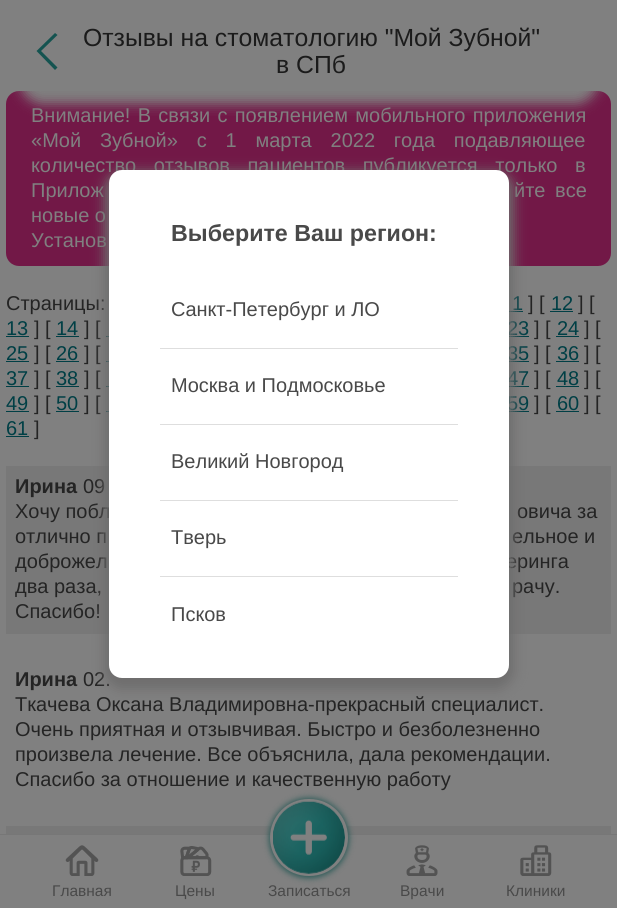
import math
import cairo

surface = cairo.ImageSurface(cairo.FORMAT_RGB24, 617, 908)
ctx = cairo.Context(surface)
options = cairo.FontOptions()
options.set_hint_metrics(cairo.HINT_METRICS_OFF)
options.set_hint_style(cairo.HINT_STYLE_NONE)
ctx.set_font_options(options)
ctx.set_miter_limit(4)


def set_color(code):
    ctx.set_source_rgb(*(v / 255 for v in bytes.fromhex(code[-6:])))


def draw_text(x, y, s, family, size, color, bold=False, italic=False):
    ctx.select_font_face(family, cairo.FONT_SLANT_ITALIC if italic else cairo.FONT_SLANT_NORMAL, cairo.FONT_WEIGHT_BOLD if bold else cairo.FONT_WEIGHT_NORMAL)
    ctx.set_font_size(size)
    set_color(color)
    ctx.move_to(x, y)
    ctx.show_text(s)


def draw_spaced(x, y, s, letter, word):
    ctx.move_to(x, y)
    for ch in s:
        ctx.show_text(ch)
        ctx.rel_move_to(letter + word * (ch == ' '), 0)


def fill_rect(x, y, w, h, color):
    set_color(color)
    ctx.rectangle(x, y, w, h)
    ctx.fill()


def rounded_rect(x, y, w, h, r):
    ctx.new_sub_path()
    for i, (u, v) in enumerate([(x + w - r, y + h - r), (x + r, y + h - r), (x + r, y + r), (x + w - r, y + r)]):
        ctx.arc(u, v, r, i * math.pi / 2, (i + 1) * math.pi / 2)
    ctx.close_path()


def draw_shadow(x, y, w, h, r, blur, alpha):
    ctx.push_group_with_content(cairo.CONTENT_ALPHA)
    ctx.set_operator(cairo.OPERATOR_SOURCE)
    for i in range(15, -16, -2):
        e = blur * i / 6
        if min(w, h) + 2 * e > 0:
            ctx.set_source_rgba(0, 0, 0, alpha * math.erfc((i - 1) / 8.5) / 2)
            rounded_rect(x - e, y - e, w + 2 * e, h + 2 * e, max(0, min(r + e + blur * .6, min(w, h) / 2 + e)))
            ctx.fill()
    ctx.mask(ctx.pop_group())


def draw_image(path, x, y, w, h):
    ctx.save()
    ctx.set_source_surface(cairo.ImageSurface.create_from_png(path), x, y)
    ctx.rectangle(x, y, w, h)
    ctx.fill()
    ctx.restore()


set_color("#808080")
ctx.paint()
set_color("#721847")
rounded_rect(6, 91, 605, 175, 13)
ctx.fill()
ctx.save()
ctx.rectangle(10, 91, 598, 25)
ctx.clip()
set_color("#808080")
draw_shadow(19, 50, 580, 54, 25, 6, 1)
ctx.restore()
set_color("#145350")
ctx.set_fill_rule(cairo.FILL_RULE_EVEN_ODD)
ctx.new_path()
ctx.move_to(57.5, 35)
ctx.line_to(41, 51)
ctx.line_to(57.5, 67.5)
ctx.line_to(55, 70)
ctx.line_to(36.5, 51)
ctx.line_to(55, 33)
ctx.close_path()
ctx.fill()
draw_text(83, 46, "Отзывы на стоматологию \"Мой Зубной\"", "Liberation Sans", 24.75, "#1b1b1b")
draw_text(276, 73, "в СПб", "Liberation Sans", 24.75, "#1b1b1b")
ctx.set_font_size(20)
set_color("#808080")
draw_spaced(31, 122, "Внимание! В связи с появлением мобильного приложения", 0, 1.75)
draw_spaced(31, 147, "«Мой Зубной» с 1 марта 2022 года подавляющее", 0, 13.25)
draw_spaced(31, 172, "количество отзывов пациентов публикуется только в", 0, 12)
draw_spaced(31, 197, "Прилож", 0, 4)
draw_spaced(514, 197, "йте все", 0, 4)
draw_text(31, 222, "новые о", "Liberation Sans", 20, "#808080")
draw_text(31, 247, "Установ", "Liberation Sans", 20, "#808080")
draw_text(6, 310, "Страницы:", "Liberation Sans", 20, "#242424")
draw_text(512, 310, "1", "Liberation Sans", 20, "#003f45")
fill_rect(509, 311, 14, 1, "#003f45")
draw_text(528, 310, "] [", "Liberation Sans", 20, "#242424")
draw_text(551, 310, "12", "Liberation Sans", 20, "#003f45")
fill_rect(550, 311, 23, 1, "#003f45")
draw_text(578, 310, "] [", "Liberation Sans", 20, "#242424")
draw_text(6, 335, "13", "Liberation Sans", 20, "#003f45")
fill_rect(6, 336, 23, 1, "#003f45")
draw_text(34, 335, "] [", "Liberation Sans", 20, "#242424")
draw_text(56, 335, "14", "Liberation Sans", 20, "#003f45")
fill_rect(56, 336, 23, 1, "#003f45")
draw_text(84, 335, "] [", "Liberation Sans", 20, "#242424")
draw_text(507, 335, "23", "Liberation Sans", 20, "#003f45")
fill_rect(506, 336, 23, 1, "#003f45")
draw_text(534, 335, "] [", "Liberation Sans", 20, "#242424")
draw_text(557, 335, "24", "Liberation Sans", 20, "#003f45")
fill_rect(556, 336, 23, 1, "#003f45")
draw_text(584, 335, "] [", "Liberation Sans", 20, "#242424")
fill_rect(106, 336, 3, 1, "#003f45")
draw_text(6, 360, "25", "Liberation Sans", 20, "#003f45")
fill_rect(6, 361, 23, 1, "#003f45")
draw_text(34, 360, "] [", "Liberation Sans", 20, "#242424")
draw_text(56, 360, "26", "Liberation Sans", 20, "#003f45")
fill_rect(56, 361, 23, 1, "#003f45")
draw_text(84, 360, "] [", "Liberation Sans", 20, "#242424")
draw_text(507, 360, "35", "Liberation Sans", 20, "#003f45")
fill_rect(506, 361, 23, 1, "#003f45")
draw_text(534, 360, "] [", "Liberation Sans", 20, "#242424")
draw_text(557, 360, "36", "Liberation Sans", 20, "#003f45")
fill_rect(556, 361, 23, 1, "#003f45")
draw_text(584, 360, "] [", "Liberation Sans", 20, "#242424")
fill_rect(106, 361, 3, 1, "#003f45")
draw_text(6, 385, "37", "Liberation Sans", 20, "#003f45")
fill_rect(6, 386, 23, 1, "#003f45")
draw_text(34, 385, "] [", "Liberation Sans", 20, "#242424")
draw_text(56, 385, "38", "Liberation Sans", 20, "#003f45")
fill_rect(56, 386, 23, 1, "#003f45")
draw_text(84, 385, "] [", "Liberation Sans", 20, "#242424")
draw_text(507, 385, "47", "Liberation Sans", 20, "#003f45")
fill_rect(506, 386, 23, 1, "#003f45")
draw_text(534, 385, "] [", "Liberation Sans", 20, "#242424")
draw_text(557, 385, "48", "Liberation Sans", 20, "#003f45")
fill_rect(556, 386, 23, 1, "#003f45")
draw_text(584, 385, "] [", "Liberation Sans", 20, "#242424")
fill_rect(106, 386, 3, 1, "#003f45")
draw_text(6, 410, "49", "Liberation Sans", 20, "#003f45")
fill_rect(6, 411, 23, 1, "#003f45")
draw_text(34, 410, "] [", "Liberation Sans", 20, "#242424")
draw_text(56, 410, "50", "Liberation Sans", 20, "#003f45")
fill_rect(56, 411, 23, 1, "#003f45")
draw_text(84, 410, "] [", "Liberation Sans", 20, "#242424")
draw_text(507, 410, "59", "Liberation Sans", 20, "#003f45")
fill_rect(506, 411, 23, 1, "#003f45")
draw_text(534, 410, "] [", "Liberation Sans", 20, "#242424")
draw_text(557, 410, "60", "Liberation Sans", 20, "#003f45")
fill_rect(556, 411, 23, 1, "#003f45")
draw_text(584, 410, "] [", "Liberation Sans", 20, "#242424")
fill_rect(106, 411, 3, 1, "#003f45")
draw_text(6, 435, "61", "Liberation Sans", 20, "#003f45")
fill_rect(6, 436, 23, 1, "#003f45")
draw_text(34, 435, "]", "Liberation Sans", 20, "#242424")
fill_rect(6, 466, 605, 168, "#787878")
draw_text(15, 493, "Ирина", "Liberation Sans", 20, "#242424", bold=True)
draw_text(83, 493, "09", "Liberation Sans", 20, "#242424")
draw_text(15, 518, "Хочу побл", "Liberation Sans", 20, "#242424")
draw_text(517, 518, "овича за", "Liberation Sans", 20, "#242424")
draw_text(15, 543, "отлично п", "Liberation Sans", 20, "#242424")
draw_text(512, 543, "ельное и", "Liberation Sans", 20, "#242424")
draw_text(15, 568, "доброжел", "Liberation Sans", 20, "#242424")
draw_text(506, 568, "еринга", "Liberation Sans", 20, "#242424")
draw_text(15, 593, "два раза,", "Liberation Sans", 20, "#242424")
draw_text(512, 593, "рачу.", "Liberation Sans", 20, "#242424")
draw_text(15, 618, "Спасибо!", "Liberation Sans", 20, "#242424")
draw_text(15, 686, "Ирина", "Liberation Sans", 20, "#242424", bold=True)
draw_text(83, 686, "02.", "Liberation Sans", 20, "#242424")
draw_text(15, 711, "Ткачева Оксана Владимировна-прекрасный специалист.", "Liberation Sans", 20, "#242424")
draw_text(15, 736, "Очень приятная и отзывчивая. Быстро и безболезненно", "Liberation Sans", 20, "#242424")
draw_text(15, 761, "произвела лечение. Все объяснила, дала рекомендации.", "Liberation Sans", 20, "#242424")
draw_text(15, 786, "Спасибо за отношение и качественную работу", "Liberation Sans", 20, "#242424")
fill_rect(6, 826, 605, 8, "#787878")
fill_rect(0, 834, 617, 1, "#777777")
draw_image("assets/img1.png", 65, 845, 34, 31)
draw_text(52, 896, "Главная", "Liberation Sans", 15.5, "#494949")
draw_image("assets/img2.png", 180, 846, 32, 30)
draw_text(175, 896, "Цены", "Liberation Sans", 15.5, "#494949")
set_color("#2a5a57")
draw_shadow(269, 798, 80, 80, 40, 3, 1)
set_color("#808080")
rounded_rect(271.5, 800.5, 75, 74, 37)
ctx.fill_preserve()
ctx.set_line_width(3)
ctx.stroke()
draw_image("assets/img3.png", 273, 801, 72, 73)
draw_text(268, 896, "Записаться", "Liberation Sans", 15.5, "#494949")
draw_image("assets/img4.png", 406, 845, 32, 31)
draw_text(400, 896, "Врачи", "Liberation Sans", 15.5, "#494949")
draw_image("assets/img5.png", 520, 845, 32, 31)
draw_text(506, 896, "Клиники", "Liberation Sans", 15.5, "#494949")
set_color("#6e6d6d")
draw_shadow(104, 171, 410, 518, 18, 6, 1)
set_color("#ffffff")
rounded_rect(109, 170, 400, 508, 13)
ctx.fill()
draw_text(171, 241, "Выберите Ваш регион:", "Liberation Sans", 23.25, "#494949", bold=True)
draw_text(171, 316, "Санкт-Петербург и ЛО", "Liberation Sans", 20, "#494949")
fill_rect(160, 348, 298, 1, "#dedede")
draw_text(171, 392, "Москва и Подмосковье", "Liberation Sans", 20, "#494949")
fill_rect(160, 424, 298, 1, "#dedede")
draw_text(171, 468, "Великий Новгород", "Liberation Sans", 20, "#494949")
fill_rect(160, 500, 298, 1, "#dedede")
draw_text(171, 544, "Тверь", "Liberation Sans", 20, "#494949")
fill_rect(160, 576, 298, 1, "#dedede")
draw_text(171, 621, "Псков", "Liberation Sans", 20, "#494949")
surface.write_to_png("output.png")
